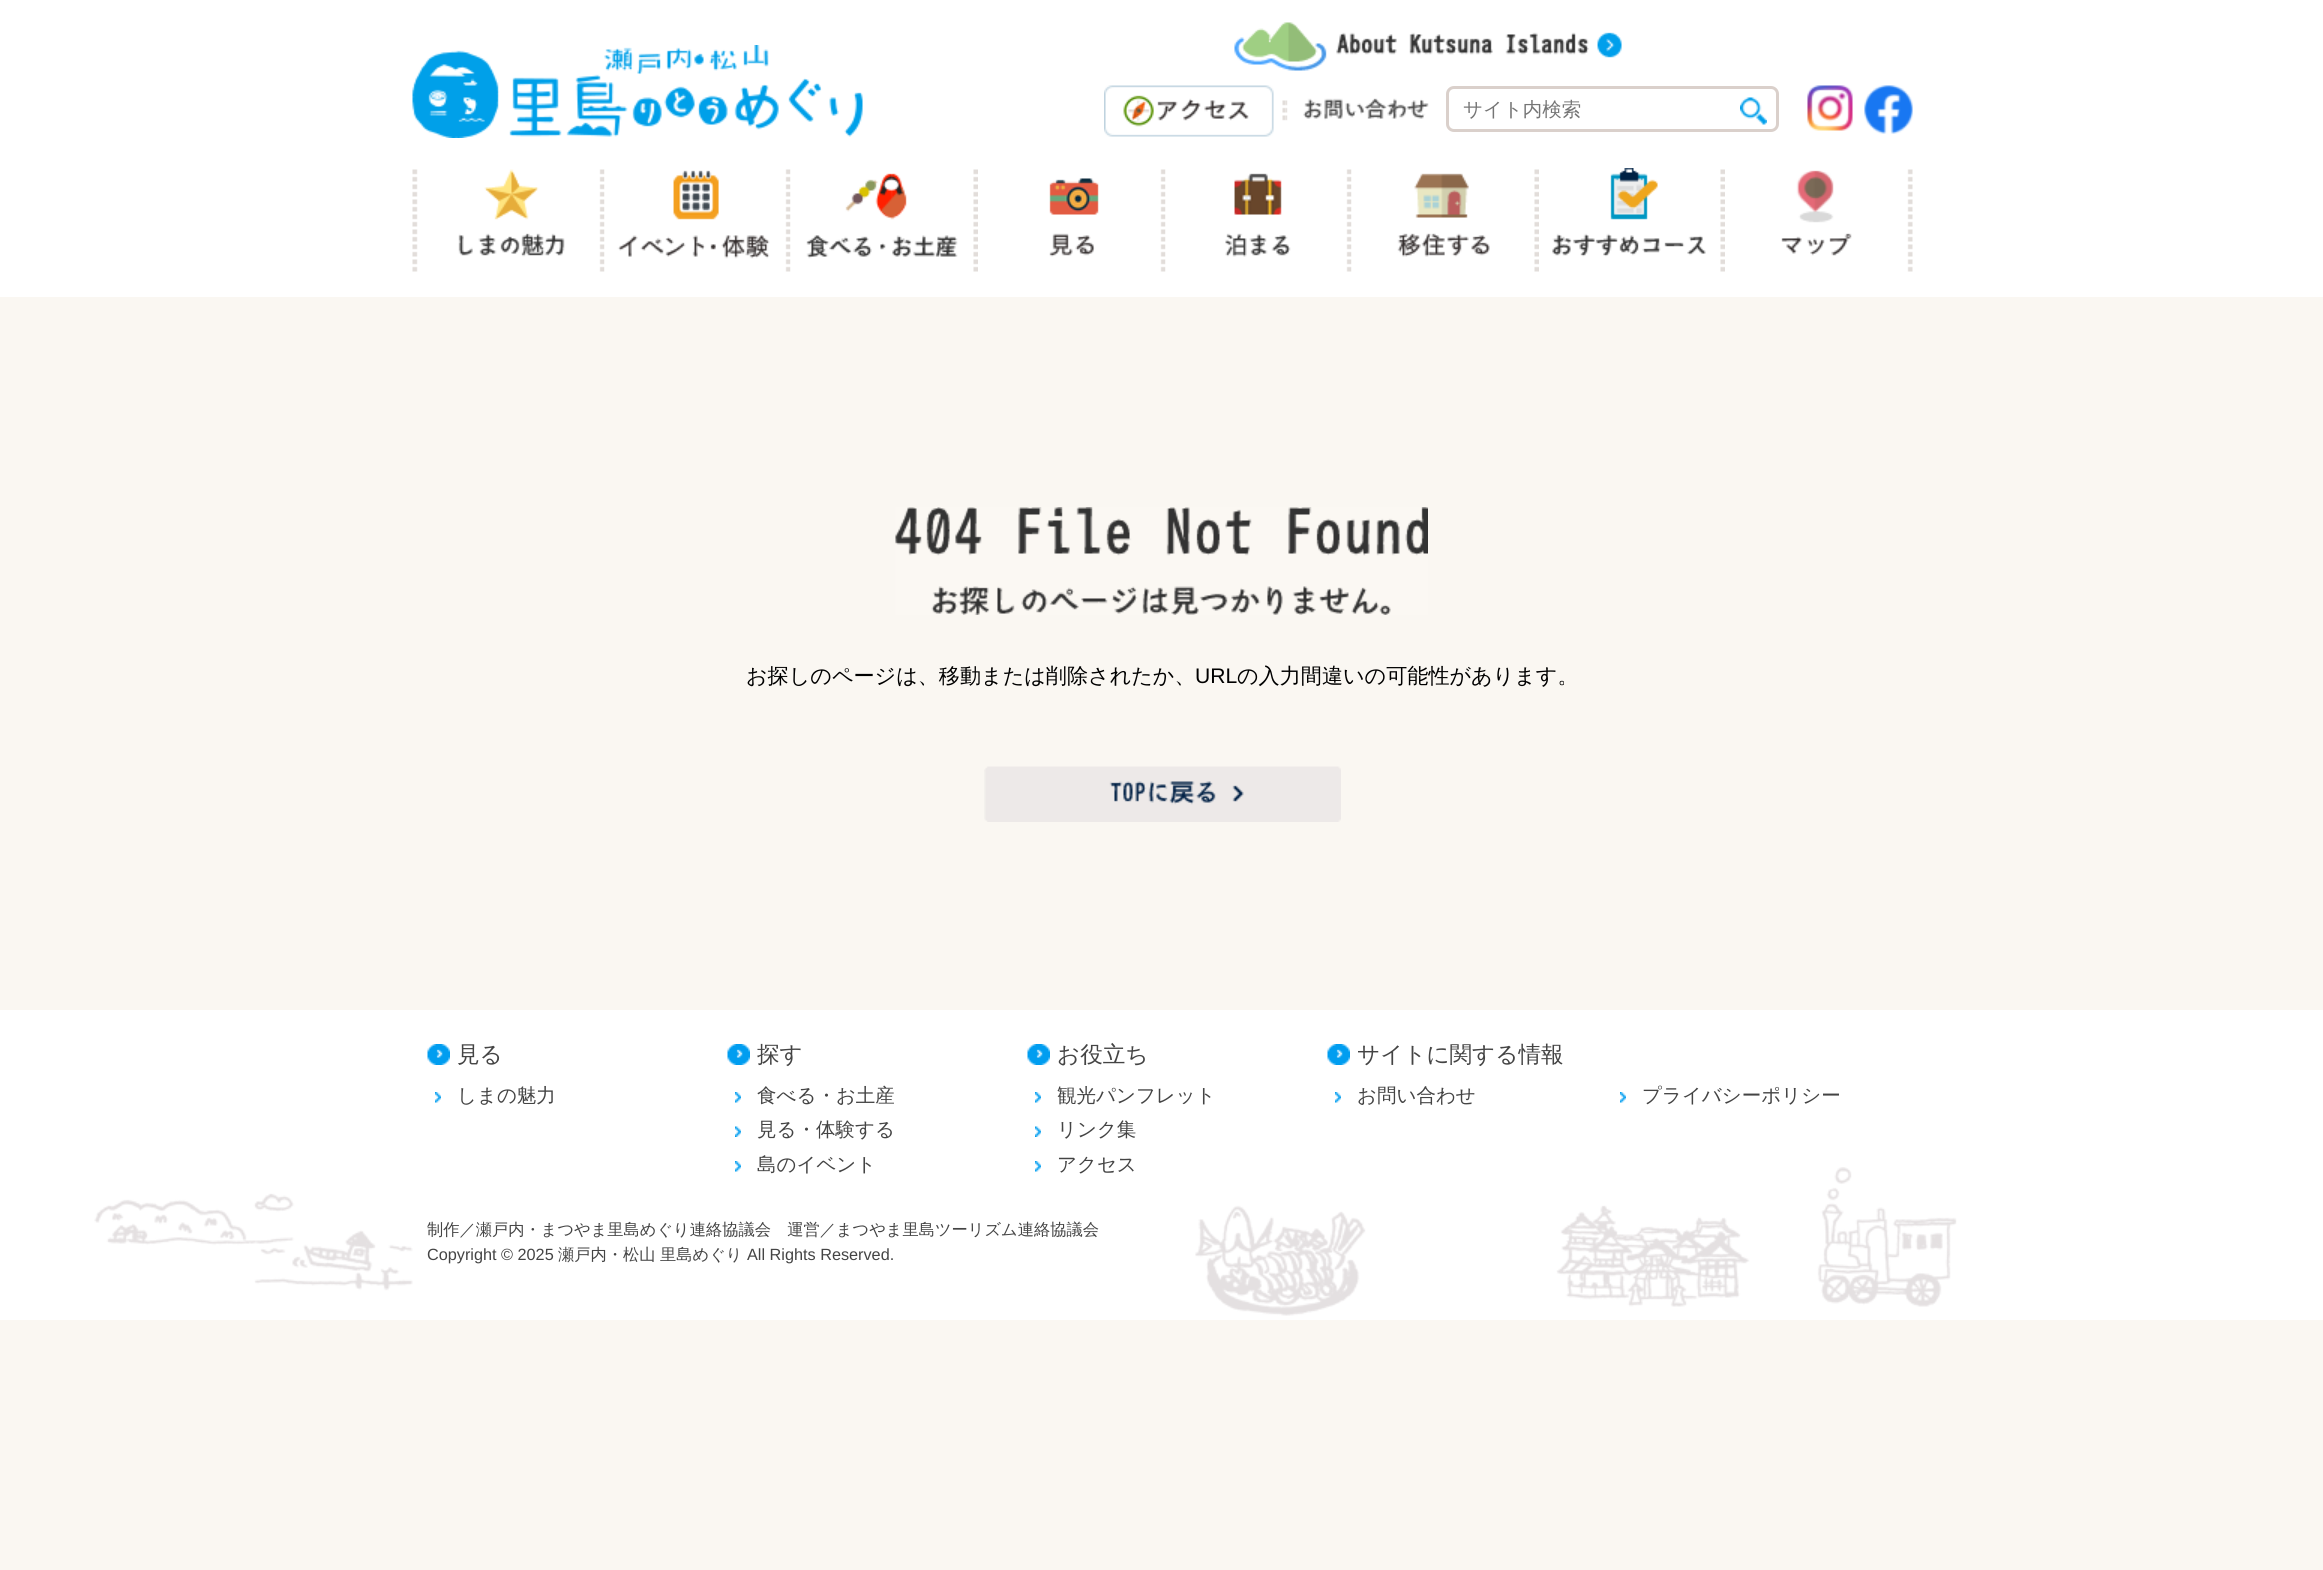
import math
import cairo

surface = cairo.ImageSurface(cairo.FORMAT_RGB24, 2323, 1570)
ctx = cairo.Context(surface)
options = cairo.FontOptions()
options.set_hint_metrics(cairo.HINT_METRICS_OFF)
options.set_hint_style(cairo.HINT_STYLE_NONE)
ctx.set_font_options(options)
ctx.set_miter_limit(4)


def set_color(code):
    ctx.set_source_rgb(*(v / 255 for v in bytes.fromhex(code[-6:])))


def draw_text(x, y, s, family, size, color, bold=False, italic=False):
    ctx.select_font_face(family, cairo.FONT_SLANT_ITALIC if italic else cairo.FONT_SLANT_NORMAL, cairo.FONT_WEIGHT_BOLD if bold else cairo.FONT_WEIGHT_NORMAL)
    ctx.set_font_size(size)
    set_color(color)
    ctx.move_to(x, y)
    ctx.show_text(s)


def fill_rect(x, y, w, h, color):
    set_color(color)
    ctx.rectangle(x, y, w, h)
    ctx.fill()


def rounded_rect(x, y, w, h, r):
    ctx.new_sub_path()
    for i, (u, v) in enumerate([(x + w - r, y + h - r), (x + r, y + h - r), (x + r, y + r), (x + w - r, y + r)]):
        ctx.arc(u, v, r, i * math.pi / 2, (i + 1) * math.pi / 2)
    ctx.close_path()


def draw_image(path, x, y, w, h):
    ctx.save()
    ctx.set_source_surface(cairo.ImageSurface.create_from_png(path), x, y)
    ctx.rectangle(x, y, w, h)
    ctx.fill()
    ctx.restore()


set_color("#faf7f2")
ctx.paint()
fill_rect(0, 0, 2323, 297, "#ffffff")
draw_image("assets/img1.png", 412, 45, 451, 93)
draw_image("assets/img2.png", 1234, 22, 388, 49)
draw_image("assets/img3.png", 1104, 85, 182, 52)
draw_image("assets/img4.png", 1285, 98, 144, 23)
rounded_rect(1447.5, 87.5, 330, 43, 6.5)
set_color("#dad0cb")
ctx.set_line_width(3)
ctx.stroke()
draw_text(1463, 116, "サイト内検索", "WenQuanYi Zen Hei Medium", 19.5, "#757575")
draw_image("assets/img5.png", 1740, 97, 27, 28)
draw_image("assets/img6.png", 1807, 85, 46, 46)
draw_image("assets/img7.png", 1864, 85, 49, 49)
draw_image("assets/img8.png", 412, 169, 193, 103)
draw_image("assets/img9.png", 604, 169, 187, 103)
draw_image("assets/img10.png", 790, 169, 188, 103)
draw_image("assets/img11.png", 1049, 169, 117, 103)
draw_image("assets/img12.png", 1165, 169, 187, 103)
draw_image("assets/img13.png", 1351, 169, 188, 103)
draw_image("assets/img14.png", 1552, 168, 173, 104)
draw_image("assets/img15.png", 1781, 169, 132, 103)
draw_image("assets/img16.png", 895, 507, 533, 108)
draw_text(746, 683, "お探しのページは、移動または削除されたか、", "WenQuanYi Zen Hei Medium", 21.1, "#000000")
draw_text(1195, 683, "URL", "Liberation Sans", 21.1, "#000000")
draw_text(1237, 683, "の入力間違いの可能性があります。", "WenQuanYi Zen Hei Medium", 21.1, "#000000")
draw_image("assets/img17.png", 984, 766, 357, 56)
fill_rect(0, 1010, 2323, 310, "#ffffff")
draw_image("assets/img18.png", 94, 1167, 1863, 149)
draw_image("assets/img19.png", 427, 1044, 23, 21)
draw_text(457, 1062, "見る", "WenQuanYi Zen Hei Medium", 22.6, "#444444")
draw_image("assets/img20.png", 435, 1092, 6, 11)
draw_text(457, 1102, "しまの魅力", "WenQuanYi Zen Hei Medium", 19.5, "#444444")
draw_image("assets/img19.png", 727, 1044, 23, 21)
draw_text(757, 1062, "探す", "WenQuanYi Zen Hei Medium", 22.6, "#444444")
draw_image("assets/img20.png", 735, 1092, 6, 11)
draw_text(757, 1102, "食べる・お土産", "WenQuanYi Zen Hei Medium", 19.5, "#444444")
draw_image("assets/img21.png", 735, 1126, 6, 11)
draw_text(757, 1136, "見る・体験する", "WenQuanYi Zen Hei Medium", 19.5, "#444444")
draw_image("assets/img20.png", 735, 1161, 6, 11)
draw_text(757, 1171, "島のイベント", "WenQuanYi Zen Hei Medium", 19.5, "#444444")
draw_image("assets/img19.png", 1027, 1044, 23, 21)
draw_text(1057, 1062, "お役立ち", "WenQuanYi Zen Hei Medium", 22.6, "#444444")
draw_image("assets/img20.png", 1035, 1092, 6, 11)
draw_text(1057, 1102, "観光パンフレット", "WenQuanYi Zen Hei Medium", 19.5, "#444444")
draw_image("assets/img21.png", 1035, 1126, 6, 11)
draw_text(1057, 1136, "リンク集", "WenQuanYi Zen Hei Medium", 19.5, "#444444")
draw_image("assets/img20.png", 1035, 1161, 6, 11)
draw_text(1057, 1171, "アクセス", "WenQuanYi Zen Hei Medium", 19.5, "#444444")
draw_image("assets/img19.png", 1327, 1044, 23, 21)
draw_text(1357, 1062, "サイトに関する情報", "WenQuanYi Zen Hei Medium", 22.6, "#444444")
draw_image("assets/img20.png", 1335, 1092, 6, 11)
draw_text(1357, 1102, "お問い合わせ", "WenQuanYi Zen Hei Medium", 19.5, "#444444")
draw_image("assets/img22.png", 1620, 1092, 6, 11)
draw_text(1642, 1102, "プライバシーポリシー", "WenQuanYi Zen Hei Medium", 19.5, "#444444")
draw_text(427, 1235, "制作／瀬戸内・まつやま里島めぐり連絡協議会　運営／まつやま里島ツーリズム連絡協議会", "WenQuanYi Zen Hei Medium", 16.25, "#444444")
draw_text(427, 1260, "Copyright © 2025", "Liberation Sans", 16.25, "#444444")
draw_text(558, 1260, "瀬戸内・松山", "WenQuanYi Zen Hei Medium", 16.25, "#444444")
draw_text(660, 1260, "里島めぐり", "WenQuanYi Zen Hei Medium", 16.25, "#444444")
draw_text(747, 1260, "All Rights Reserved.", "Liberation Sans", 16.25, "#444444")
surface.write_to_png("output.png")
